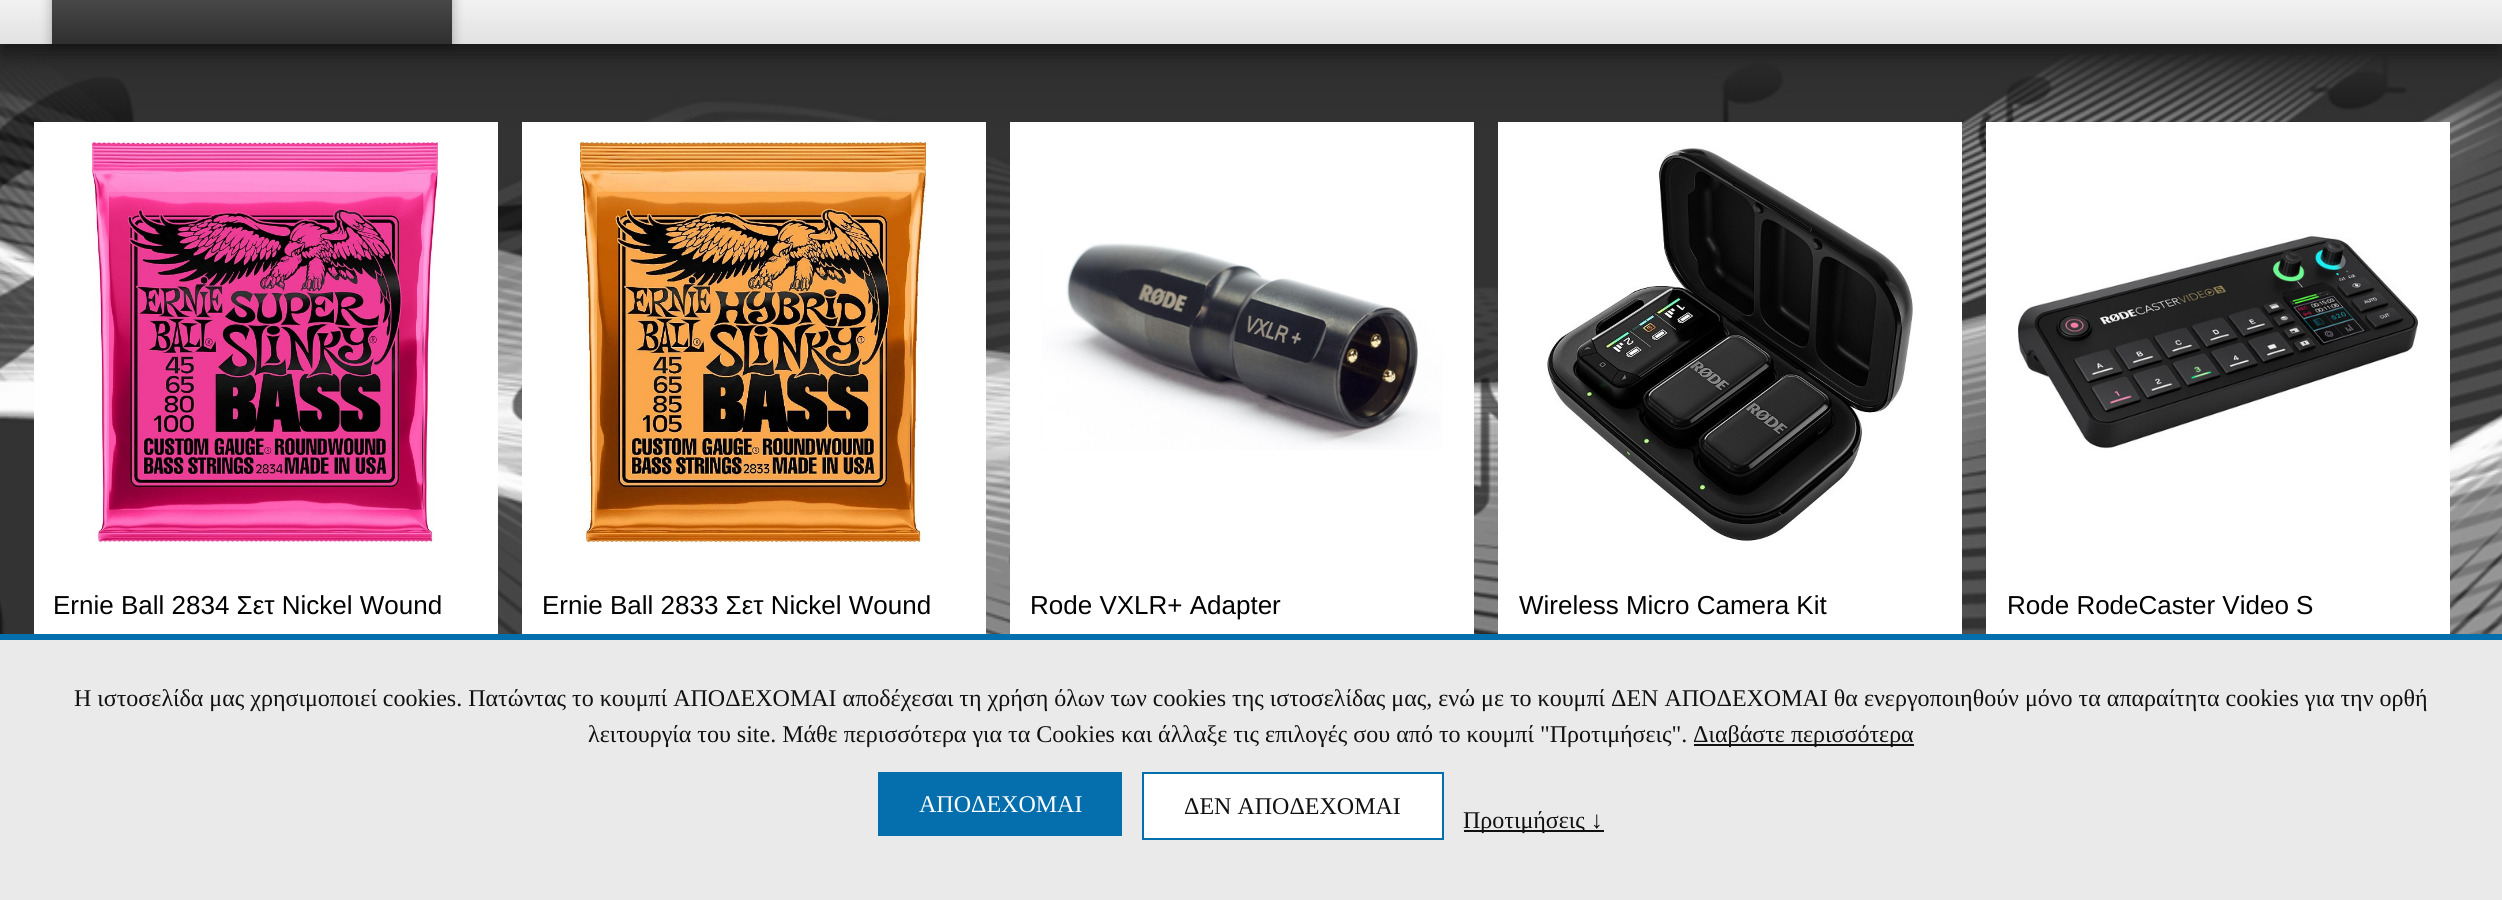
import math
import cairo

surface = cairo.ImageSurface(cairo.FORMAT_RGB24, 2502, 900)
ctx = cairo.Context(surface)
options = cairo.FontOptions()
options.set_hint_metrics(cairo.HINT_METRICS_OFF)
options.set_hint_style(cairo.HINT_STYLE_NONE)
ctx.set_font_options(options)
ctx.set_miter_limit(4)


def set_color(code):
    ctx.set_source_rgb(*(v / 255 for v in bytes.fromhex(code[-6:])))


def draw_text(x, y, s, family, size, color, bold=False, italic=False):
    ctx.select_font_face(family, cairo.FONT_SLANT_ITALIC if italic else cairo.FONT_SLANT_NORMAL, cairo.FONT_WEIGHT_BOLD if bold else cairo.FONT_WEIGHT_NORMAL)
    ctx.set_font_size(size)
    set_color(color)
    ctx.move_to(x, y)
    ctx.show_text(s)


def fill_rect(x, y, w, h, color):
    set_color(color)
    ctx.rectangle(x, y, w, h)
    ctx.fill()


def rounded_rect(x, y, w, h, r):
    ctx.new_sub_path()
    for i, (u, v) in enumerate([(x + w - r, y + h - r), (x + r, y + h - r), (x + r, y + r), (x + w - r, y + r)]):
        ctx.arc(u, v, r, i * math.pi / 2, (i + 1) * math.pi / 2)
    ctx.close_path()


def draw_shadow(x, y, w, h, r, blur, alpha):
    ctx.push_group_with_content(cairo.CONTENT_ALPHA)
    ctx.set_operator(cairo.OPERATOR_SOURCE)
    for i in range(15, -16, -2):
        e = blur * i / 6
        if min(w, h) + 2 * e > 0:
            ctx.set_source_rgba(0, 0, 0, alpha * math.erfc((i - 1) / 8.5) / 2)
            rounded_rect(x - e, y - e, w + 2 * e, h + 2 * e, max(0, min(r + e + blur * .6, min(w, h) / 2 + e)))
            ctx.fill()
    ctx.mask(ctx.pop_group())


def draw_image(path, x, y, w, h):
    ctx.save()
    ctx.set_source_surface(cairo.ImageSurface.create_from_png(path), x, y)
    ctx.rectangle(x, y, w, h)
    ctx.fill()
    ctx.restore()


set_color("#2f2f2f")
ctx.paint()
draw_image("assets/img1.png", 0, 54, 2502, 580)
set_color("#000000")
draw_shadow(0, -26, 2502, 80, 0, 10, 0.5)
gradient = cairo.LinearGradient(1251, -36, 1251, 44)
gradient.add_color_stop_rgba(0, 0.996, 0.996, 0.996, 1)
gradient.add_color_stop_rgba(1, 0.886, 0.886, 0.886, 1)
ctx.set_source(gradient)
ctx.rectangle(0, 0, 2502, 44)
ctx.fill()
set_color("#000000")
draw_shadow(52, -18, 400, 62, 0, 6, 0.3)
gradient = cairo.LinearGradient(252, -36, 252, 44)
gradient.add_color_stop_rgba(0, 0.361, 0.361, 0.361, 1)
gradient.add_color_stop_rgba(1, 0.184, 0.184, 0.184, 1)
ctx.set_source(gradient)
ctx.rectangle(52, 0, 400, 44)
ctx.fill()
fill_rect(34, 122, 464, 512, "#ffffff")
draw_image("assets/img2.png", 92, 142, 346, 400)
draw_text(53, 614, "Ernie Ball 2834 Σετ Nickel Wound", "Liberation Sans", 26, "#000000")
fill_rect(522, 122, 464, 512, "#ffffff")
draw_image("assets/img3.png", 580, 142, 346, 400)
draw_text(542, 614, "Ernie Ball 2833 Σετ Nickel Wound", "Liberation Sans", 26, "#000000")
fill_rect(1010, 122, 464, 512, "#ffffff")
draw_image("assets/img4.png", 1042, 243, 400, 207)
draw_text(1030, 614, "Rode VXLR+ Adapter", "Liberation Sans", 26, "#000000")
fill_rect(1498, 122, 464, 512, "#ffffff")
draw_image("assets/img5.png", 1547, 148, 366, 393)
draw_text(1519, 614, "Wireless Micro Camera Kit", "Liberation Sans", 26, "#000000")
fill_rect(1986, 122, 464, 512, "#ffffff")
draw_image("assets/img6.png", 2018, 233, 400, 216)
draw_text(2007, 614, "Rode RodeCaster Video S", "Liberation Sans", 26, "#000000")
fill_rect(0, 640, 2502, 260, "#eaeaea")
fill_rect(0, 634, 2502, 6, "#046fac")
draw_text(74, 706, "Η ιστοσελίδα μας χρησιμοποιεί cookies. Πατώντας το κουμπί ΑΠΟΔΕΧΟΜΑΙ αποδέχεσαι τη χρήση όλων των cookies της ιστοσελίδας μας, ενώ με το κουμπί ΔΕΝ ΑΠΟΔΕΧΟΜΑΙ θα ενεργοποιηθούν μόνο τα απαραίτητα cookies για την ορθή", "Liberation Serif", 24, "#111111")
draw_text(588, 742, "λειτουργία του site. Μάθε περισσότερα για τα Cookies και άλλαξε τις επιλογές σου από το κουμπί \"Προτιμήσεις\".", "Liberation Serif", 24, "#111111")
fill_rect(1694, 744, 220, 2, "#111111")
draw_text(1693, 742, "Διαβάστε περισσότερα", "Liberation Serif", 24, "#111111")
fill_rect(878, 772, 244, 64, "#046fac")
draw_text(919, 812, "ΑΠΟΔΕΧΟΜΑΙ", "Liberation Serif", 24, "#ffffff")
ctx.rectangle(1143, 773, 300, 66)
ctx.fill_preserve()
set_color("#046fac")
ctx.stroke()
draw_text(1184, 814, "ΔΕΝ ΑΠΟΔΕΧΟΜΑΙ", "Liberation Serif", 24, "#111111")
fill_rect(1464, 830, 140, 2, "#111111")
draw_text(1463, 828, "Προτιμήσεις ↓", "Liberation Serif", 24, "#111111")
surface.write_to_png("output.png")
